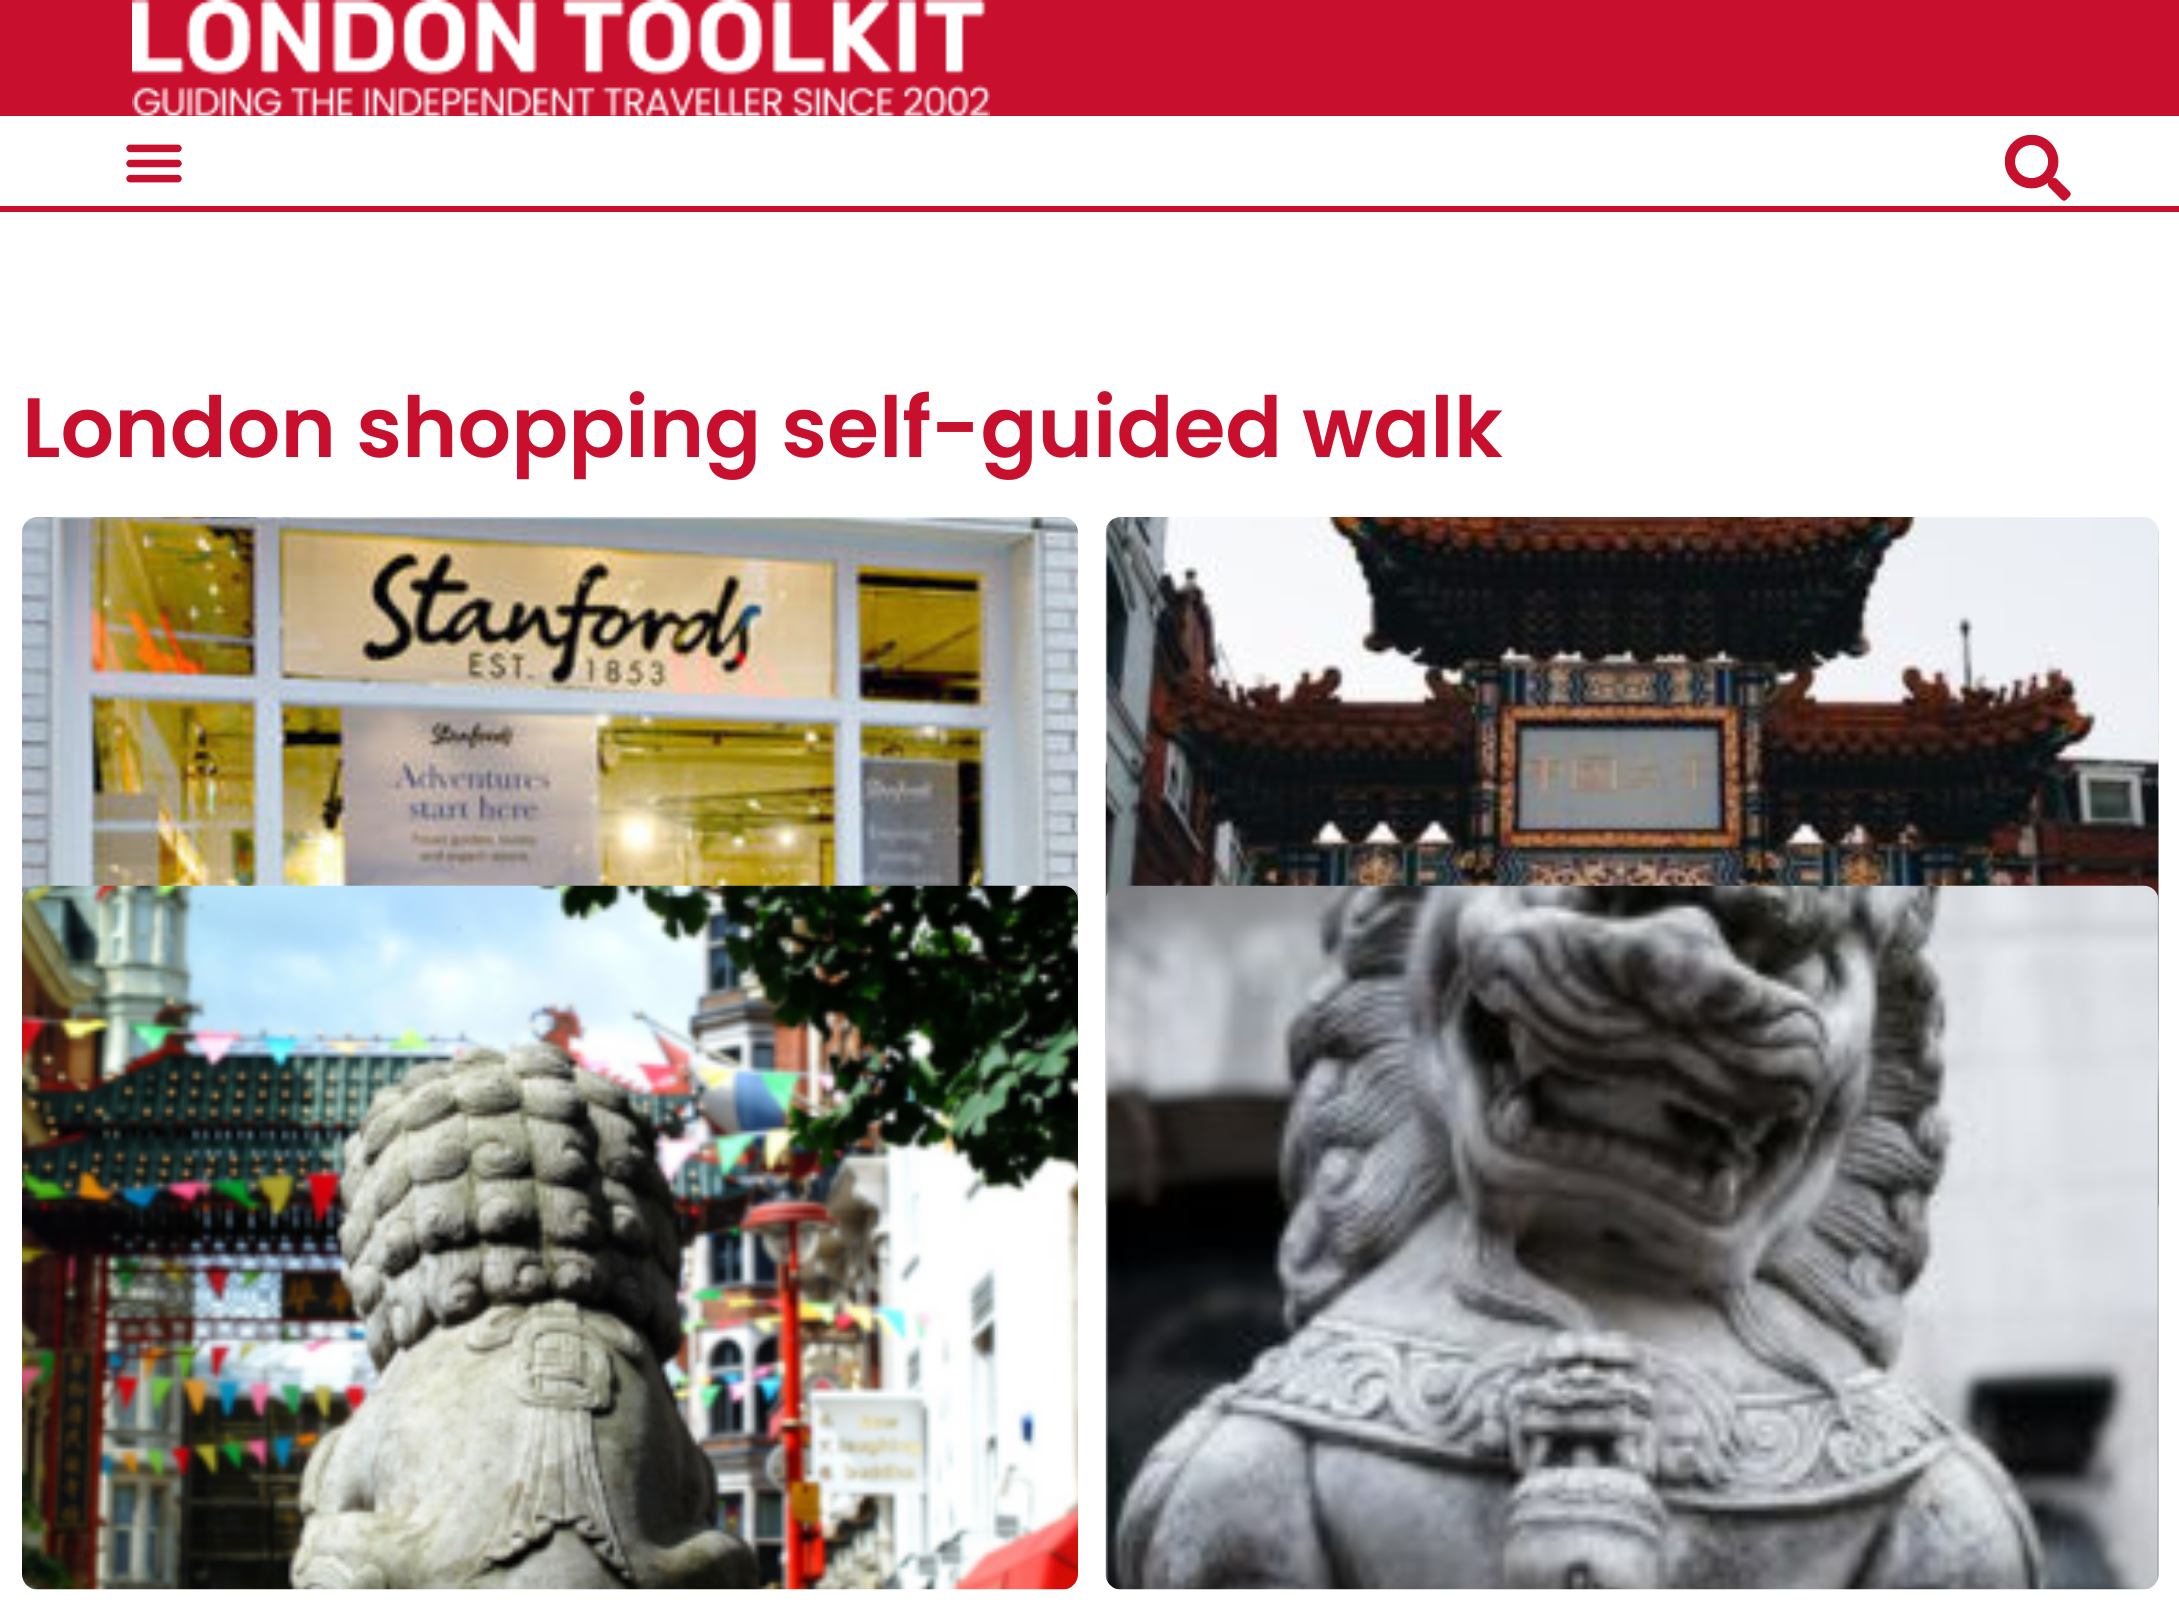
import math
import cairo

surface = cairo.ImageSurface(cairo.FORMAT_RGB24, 2179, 1603)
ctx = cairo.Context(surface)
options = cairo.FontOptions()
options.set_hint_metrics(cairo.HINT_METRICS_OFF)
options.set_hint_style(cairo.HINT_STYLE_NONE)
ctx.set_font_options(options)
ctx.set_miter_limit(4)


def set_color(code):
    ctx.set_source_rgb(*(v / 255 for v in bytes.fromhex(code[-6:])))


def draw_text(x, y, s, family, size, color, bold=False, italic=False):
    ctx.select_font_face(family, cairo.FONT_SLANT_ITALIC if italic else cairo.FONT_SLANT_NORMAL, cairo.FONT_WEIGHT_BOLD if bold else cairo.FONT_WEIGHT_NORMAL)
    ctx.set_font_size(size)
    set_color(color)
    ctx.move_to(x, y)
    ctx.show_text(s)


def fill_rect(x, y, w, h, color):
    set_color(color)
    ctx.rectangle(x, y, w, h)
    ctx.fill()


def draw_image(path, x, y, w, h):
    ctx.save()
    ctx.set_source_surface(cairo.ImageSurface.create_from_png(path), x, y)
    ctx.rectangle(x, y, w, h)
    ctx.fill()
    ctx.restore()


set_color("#ffffff")
ctx.paint()
fill_rect(0, 0, 2179, 116, "#c8102e")
draw_image("assets/img1.png", 132, 0, 858, 116)
fill_rect(0, 206, 2179, 6, "#c8102e")
draw_image("assets/img2.png", 126, 144, 56, 39)
draw_image("assets/img3.png", 2005, 135, 66, 66)
draw_text(22, 457, "London shopping self-guided walk", "Poppins SemiBold", 84.1, "#c8102e")
draw_image("assets/img4.png", 22, 517, 1056, 384)
draw_image("assets/img5.png", 1105, 517, 1054, 690)
draw_image("assets/img6.png", 22, 885, 1056, 705)
draw_image("assets/img7.png", 1105, 885, 1054, 705)
surface.write_to_png("output.png")
